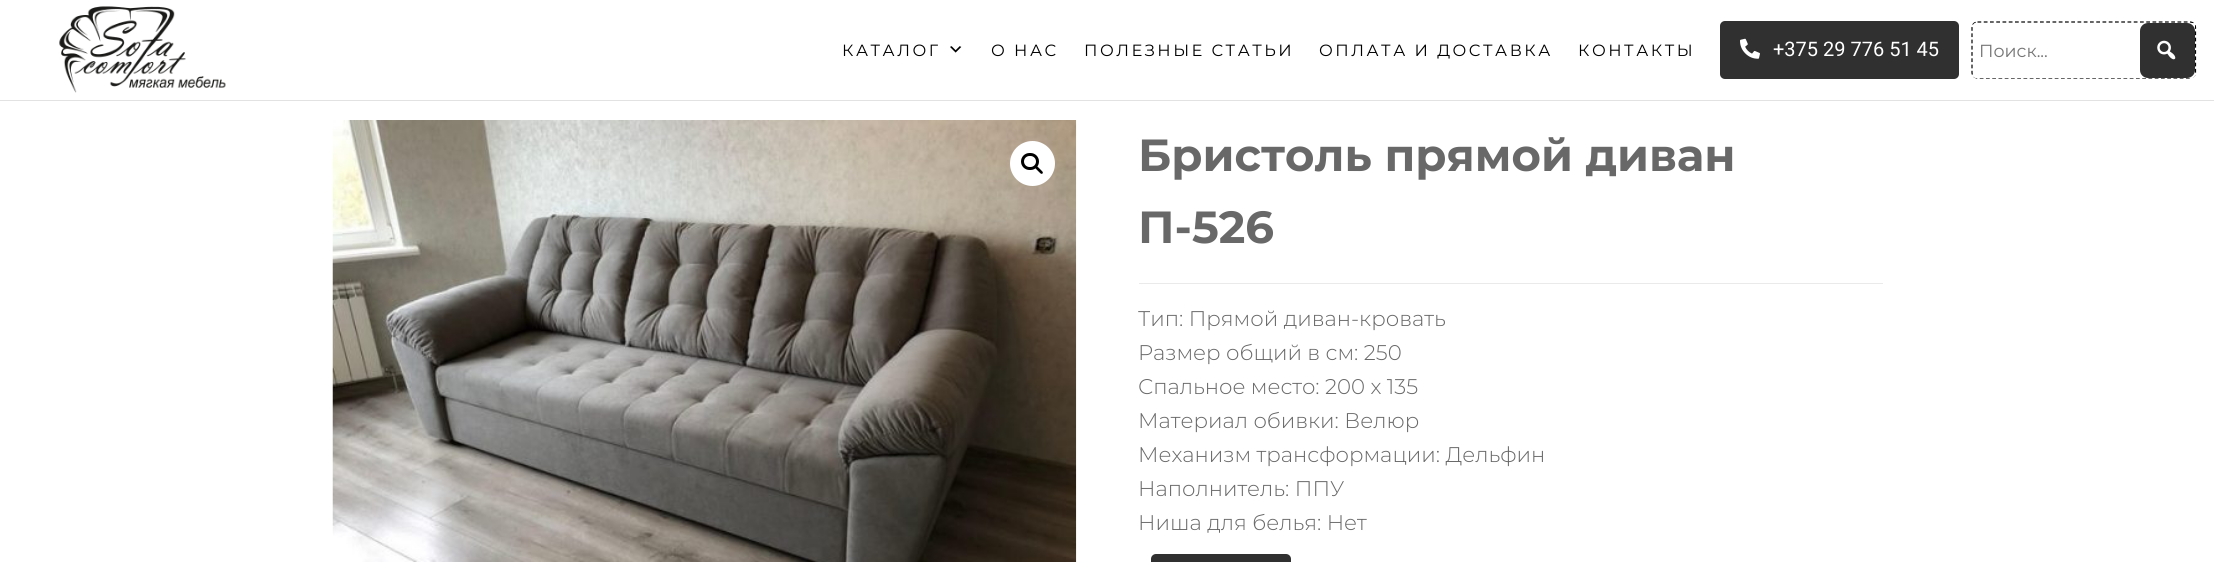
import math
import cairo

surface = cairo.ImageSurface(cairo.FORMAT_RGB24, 2214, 562)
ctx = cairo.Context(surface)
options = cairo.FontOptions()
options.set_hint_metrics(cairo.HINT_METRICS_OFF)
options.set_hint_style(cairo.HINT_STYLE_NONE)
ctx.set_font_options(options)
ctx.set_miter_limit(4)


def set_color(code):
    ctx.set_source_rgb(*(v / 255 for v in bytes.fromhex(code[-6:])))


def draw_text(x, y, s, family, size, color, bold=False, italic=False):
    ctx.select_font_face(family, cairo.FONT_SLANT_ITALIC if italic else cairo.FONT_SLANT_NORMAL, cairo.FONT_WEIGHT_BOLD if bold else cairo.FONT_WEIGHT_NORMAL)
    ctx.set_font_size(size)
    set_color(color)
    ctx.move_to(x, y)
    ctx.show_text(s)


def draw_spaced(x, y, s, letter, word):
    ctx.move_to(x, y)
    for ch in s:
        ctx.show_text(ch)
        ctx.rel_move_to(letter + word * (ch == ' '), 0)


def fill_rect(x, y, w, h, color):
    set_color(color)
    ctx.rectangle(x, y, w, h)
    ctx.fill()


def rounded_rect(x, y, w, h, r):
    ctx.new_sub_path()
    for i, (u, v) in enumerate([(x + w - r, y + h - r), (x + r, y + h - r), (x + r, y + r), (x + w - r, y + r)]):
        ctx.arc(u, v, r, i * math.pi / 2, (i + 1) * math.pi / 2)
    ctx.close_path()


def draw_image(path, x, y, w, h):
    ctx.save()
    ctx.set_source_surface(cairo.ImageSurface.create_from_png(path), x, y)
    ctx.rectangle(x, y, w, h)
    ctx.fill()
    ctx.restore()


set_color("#ffffff")
ctx.paint()
fill_rect(0, 100, 2214, 1, "#e2e2e2")
draw_image("assets/img1.png", 59, 6, 167, 87)
ctx.select_font_face("Montserrat")
ctx.set_font_size(16.25)
set_color("#000000")
draw_spaced(842, 56, "КАТАЛОГ", 2.5, 0)
draw_image("assets/img2.png", 950, 46, 12, 7)
draw_spaced(991, 56, "О НАС", 2.5, 0)
draw_spaced(1084, 56, "ПОЛЕЗНЫЕ СТАТЬИ", 2.5, 0)
draw_spaced(1319, 56, "ОПЛАТА И ДОСТАВКА", 2.5, 0)
draw_spaced(1578, 56, "КОНТАКТЫ", 2.5, 0)
set_color("#303030")
rounded_rect(1720, 21, 239, 58, 5)
ctx.fill()
draw_image("assets/img3.png", 1740, 38, 20, 21)
draw_text(1773, 56, "+375 29 776 51 45", "Roboto", 20, "#ffffff")
ctx.new_path()
ctx.move_to(1977.5, 22)
ctx.line_to(2190, 22)
ctx.curve_to(2193, 22, 2195.5, 24.5, 2195.5, 27.5)
ctx.line_to(2195.5, 72.5)
ctx.curve_to(2195.5, 75.5, 2193, 78, 2190, 78)
ctx.line_to(1977.5, 78)
ctx.curve_to(1974.5, 78, 1972, 75.5, 1972, 72.5)
ctx.line_to(1972, 27.5)
ctx.curve_to(1972, 24.5, 1974.5, 22, 1977.5, 22)
ctx.close_path()
set_color("#000000")
ctx.set_line_width(1.2)
ctx.set_dash([3.75, 2.5])
ctx.stroke()
set_color("#ffffff")
rounded_rect(1973, 23, 222, 55, 2.5)
ctx.fill()
draw_text(1979, 57, "Поиск...", "Montserrat", 17.5, "#757575")
set_color("#303030")
rounded_rect(2140, 23, 55, 55, 8)
ctx.fill()
draw_image("assets/img4.png", 2157, 40, 19, 20)
draw_image("assets/img5.png", 332, 120, 745, 442)
set_color("#ffffff")
ctx.arc(1032.5, 163.5, 22.5, 0, 2 * math.pi)
ctx.fill()
rounded_rect(1022.5, 154.5, 15, 14, 7)
set_color("#000000")
ctx.set_line_width(3)
ctx.set_dash([])
ctx.stroke()
ctx.new_path()
ctx.move_to(1035.5, 166.5)
ctx.curve_to(1037, 165, 1039, 168.5, 1040, 169)
ctx.curve_to(1040.5, 170, 1044, 172, 1042.5, 173.5)
ctx.curve_to(1041, 175, 1039, 171.5, 1038, 171)
ctx.curve_to(1037.5, 170, 1034, 168, 1035.5, 166.5)
ctx.close_path()
ctx.fill()
fill_rect(1139, 283, 744, 1, "#eaeaea")
draw_text(1138, 171, "Бристоль прямой диван", "Montserrat", 45, "#686868", bold=True)
draw_text(1138, 243, "П-526", "Montserrat", 45, "#686868", bold=True)
draw_text(1138, 326, "Тип: Прямой диван-кровать", "Montserrat Light", 21.25, "#686868")
draw_text(1138, 360, "Размер общий в см: 250", "Montserrat Light", 21.25, "#686868")
draw_text(1138, 394, "Спальное место: 200 х 135", "Montserrat Light", 21.25, "#686868")
draw_text(1138, 428, "Материал обивки: Велюр", "Montserrat Light", 21.25, "#686868")
draw_text(1138, 462, "Механизм трансформации: Дельфин", "Montserrat Light", 21.25, "#686868")
draw_text(1138, 496, "Наполнитель: ППУ", "Montserrat Light", 21.25, "#686868")
draw_text(1138, 530, "Ниша для белья: Нет", "Montserrat Light", 21.25, "#686868")
set_color("#303030")
rounded_rect(1151, 554, 140, 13, 5)
ctx.fill()
surface.write_to_png("output.png")
